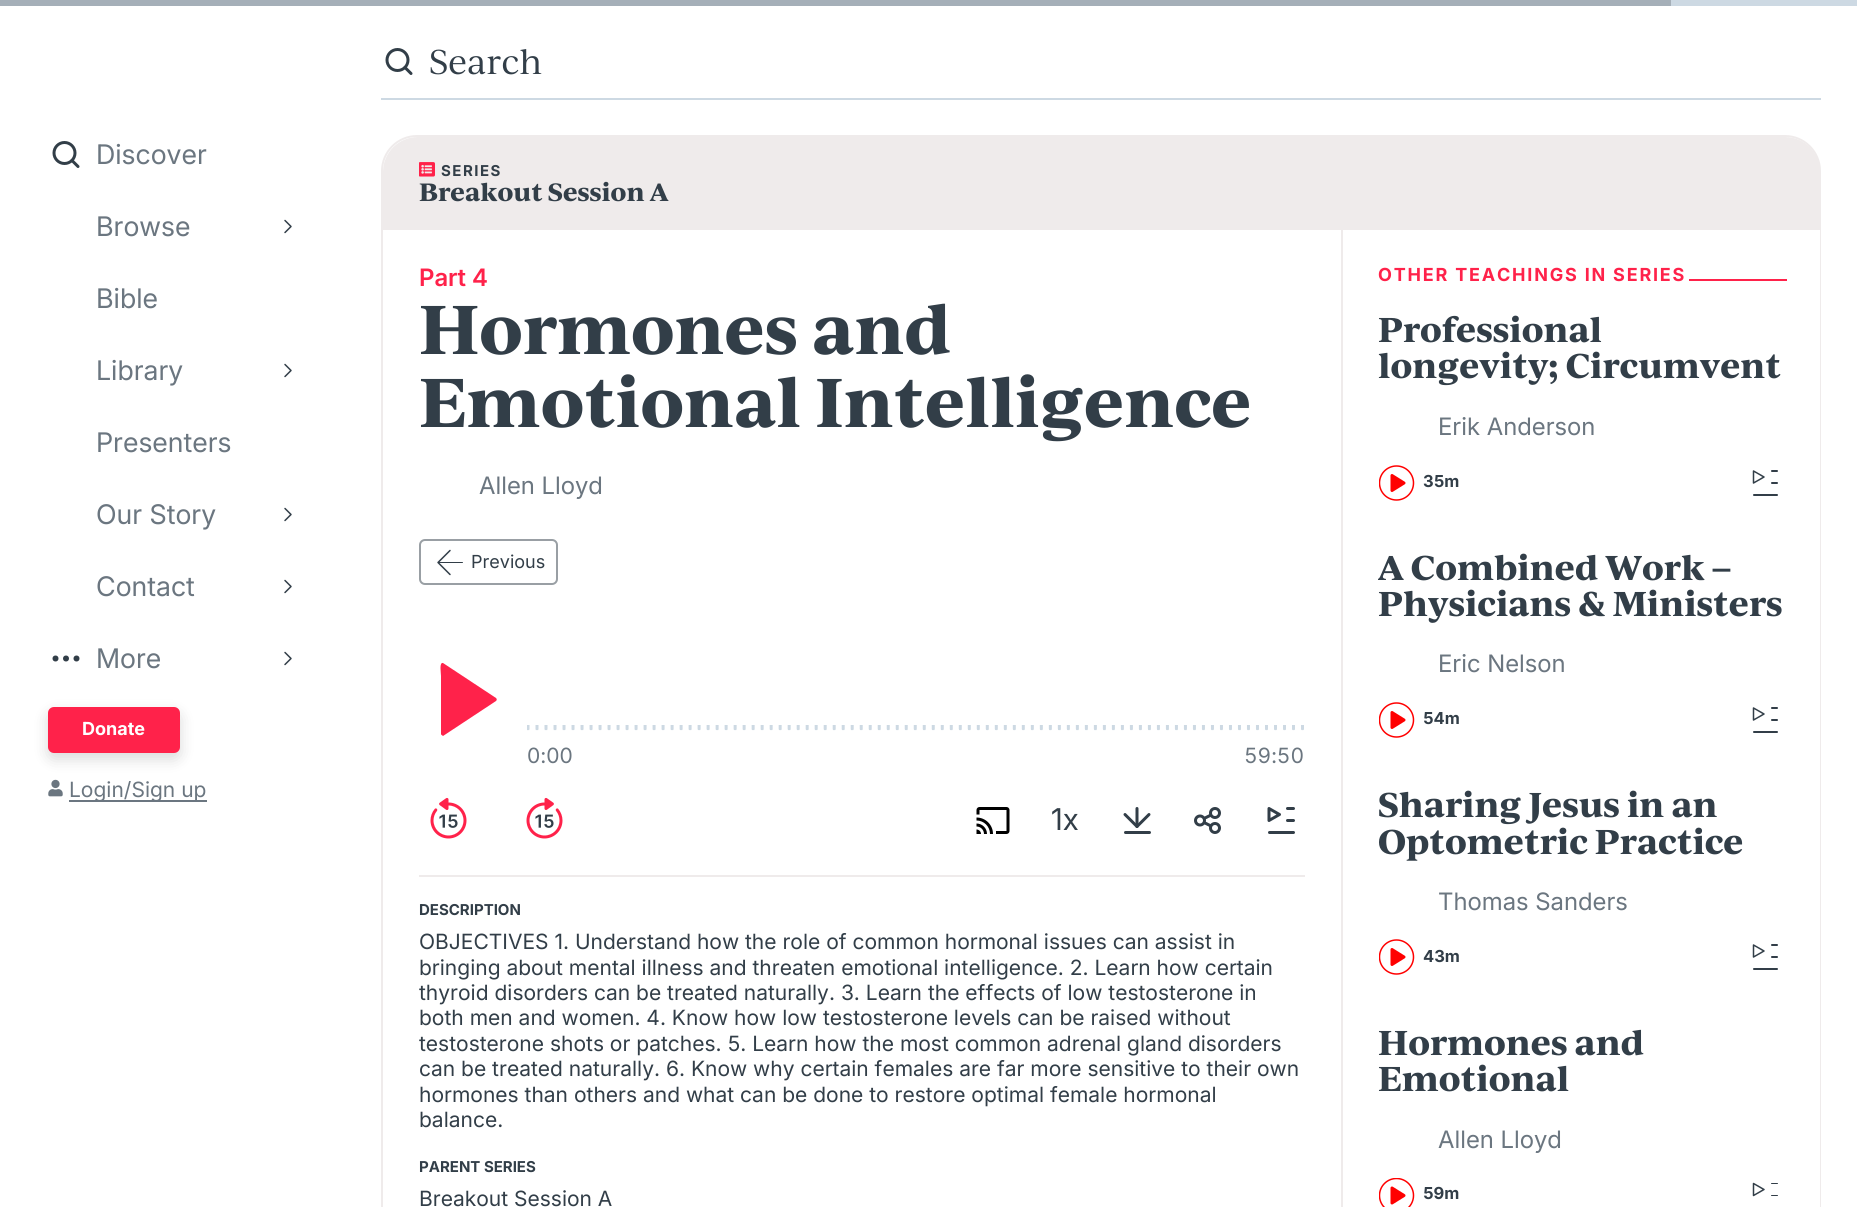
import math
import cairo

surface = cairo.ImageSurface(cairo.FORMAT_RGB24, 1857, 1207)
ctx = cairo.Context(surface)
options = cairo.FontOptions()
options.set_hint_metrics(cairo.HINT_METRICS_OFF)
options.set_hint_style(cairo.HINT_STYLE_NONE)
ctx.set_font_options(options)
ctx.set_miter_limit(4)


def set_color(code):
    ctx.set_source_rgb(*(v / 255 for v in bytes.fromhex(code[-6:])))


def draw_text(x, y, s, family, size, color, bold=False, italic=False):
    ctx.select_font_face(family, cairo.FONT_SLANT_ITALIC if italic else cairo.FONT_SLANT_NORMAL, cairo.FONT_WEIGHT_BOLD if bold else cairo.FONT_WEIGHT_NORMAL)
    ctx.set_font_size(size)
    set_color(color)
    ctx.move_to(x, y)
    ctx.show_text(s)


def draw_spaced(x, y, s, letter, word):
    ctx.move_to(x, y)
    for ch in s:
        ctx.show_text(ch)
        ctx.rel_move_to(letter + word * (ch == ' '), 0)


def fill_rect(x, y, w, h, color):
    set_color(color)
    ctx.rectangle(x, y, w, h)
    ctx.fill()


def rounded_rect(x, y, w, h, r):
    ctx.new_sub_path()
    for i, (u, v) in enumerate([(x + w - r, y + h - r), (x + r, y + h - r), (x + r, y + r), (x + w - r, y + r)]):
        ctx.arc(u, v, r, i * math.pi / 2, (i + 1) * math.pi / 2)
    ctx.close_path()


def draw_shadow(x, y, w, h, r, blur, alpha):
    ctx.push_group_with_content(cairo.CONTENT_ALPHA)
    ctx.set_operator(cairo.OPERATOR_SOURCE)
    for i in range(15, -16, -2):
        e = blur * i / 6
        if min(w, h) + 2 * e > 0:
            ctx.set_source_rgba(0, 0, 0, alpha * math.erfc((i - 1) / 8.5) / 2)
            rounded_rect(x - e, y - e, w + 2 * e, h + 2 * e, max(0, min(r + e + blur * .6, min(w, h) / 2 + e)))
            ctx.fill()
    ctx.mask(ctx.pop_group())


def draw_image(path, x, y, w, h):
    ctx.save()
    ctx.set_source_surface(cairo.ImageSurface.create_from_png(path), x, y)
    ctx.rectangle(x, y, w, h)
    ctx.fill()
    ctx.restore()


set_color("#ffffff")
ctx.paint()
fill_rect(1671, 0, 186, 6, "#cdd9e3")
fill_rect(0, 0, 1671, 6, "#a5afb8")
ctx.arc(64.5, 153, 10.5, 0, 2 * math.pi)
set_color("#323e48")
ctx.set_line_width(3)
ctx.stroke()
ctx.new_path()
ctx.move_to(72, 160.5)
ctx.line_to(78, 166.5)
ctx.set_line_cap(cairo.LINE_CAP_ROUND)
ctx.stroke()
draw_text(96, 164, "Discover", "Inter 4", 27, "#6b7680")
draw_text(96, 236, "Browse", "Inter 4", 27, "#6b7680")
draw_image("assets/img1.png", 284, 219, 8, 15)
draw_text(96, 308, "Bible", "Inter 4", 27, "#6b7680")
draw_text(96, 380, "Library", "Inter 4", 27, "#6b7680")
draw_image("assets/img1.png", 284, 363, 8, 15)
draw_text(96, 452, "Presenters", "Inter 4", 27, "#6b7680")
draw_text(96, 524, "Our Story", "Inter 4", 27, "#6b7680")
draw_image("assets/img1.png", 284, 507, 8, 15)
draw_text(96, 596, "Contact", "Inter 4", 27, "#6b7680")
draw_image("assets/img1.png", 284, 579, 8, 15)
set_color("#323e48")
ctx.arc(55.5, 658.5, 3, 0, 2 * math.pi)
ctx.fill()
ctx.arc(66, 658.5, 3, 0, 2 * math.pi)
ctx.fill()
ctx.arc(76.5, 658.5, 3, 0, 2 * math.pi)
ctx.fill()
draw_text(96, 668, "More", "Inter 4", 27, "#6b7680")
draw_image("assets/img1.png", 284, 651, 8, 15)
set_color("#000000")
draw_shadow(48, 713, 132, 46, 6, 7.5, 0.15)
set_color("#ff224a")
rounded_rect(49, 708, 130, 44, 5)
ctx.fill_preserve()
ctx.set_line_width(2)
ctx.set_line_cap(cairo.LINE_CAP_BUTT)
ctx.stroke()
draw_text(82, 735, "Donate", "Inter", 18, "#ffffff", bold=True)
draw_image("assets/img2.png", 48, 779, 15, 18)
fill_rect(69, 800, 138, 2, "#6b7680")
draw_text(69, 797, "Login/Sign up", "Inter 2", 21, "#6b7680")
fill_rect(381, 98, 1440, 2, "#cdd9e3")
ctx.new_path()
ctx.arc(397.5, 60, 10.5, 0, 2 * math.pi)
set_color("#323e48")
ctx.set_line_width(3)
ctx.stroke()
ctx.new_path()
ctx.move_to(405, 67.5)
ctx.line_to(411, 73.5)
ctx.set_line_cap(cairo.LINE_CAP_ROUND)
ctx.stroke()
draw_text(429, 74, "Search", "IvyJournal", 33, "#323e48")
rounded_rect(382, 136, 1438, 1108, 35)
set_color("#efebeb")
ctx.set_line_width(2)
ctx.set_line_cap(cairo.LINE_CAP_BUTT)
ctx.stroke()
ctx.new_path()
ctx.move_to(418, 137)
ctx.line_to(1785, 137)
ctx.curve_to(1804.5, 137, 1820, 152.5, 1820, 172)
ctx.line_to(1820, 230)
ctx.line_to(383, 230)
ctx.line_to(383, 172)
ctx.curve_to(383, 152.5, 398.5, 137, 418, 137)
ctx.close_path()
ctx.fill()
draw_image("assets/img3.png", 419, 162, 16, 15)
ctx.select_font_face("Inter", cairo.FONT_SLANT_NORMAL, cairo.FONT_WEIGHT_BOLD)
ctx.set_font_size(15)
set_color("#323e48")
draw_spaced(441, 176, "SERIES", 1.5, 0)
draw_text(419, 201, "Breakout Session A", "IvyJournal", 24, "#323e48", bold=True)
draw_text(419, 286, "Part 4", "Inter SemiBold", 24, "#ff224a")
draw_text(419, 354, "Hormones and", "IvyJournal", 66, "#323e48", bold=True)
draw_text(419, 427, "Emotional Intelligence", "IvyJournal", 66, "#323e48", bold=True)
draw_text(479, 494, "Allen Lloyd", "Inter", 24, "#6b7680")
rounded_rect(420, 540, 137, 44, 5)
set_color("#999fa4")
ctx.stroke()
draw_image("assets/img4.png", 437, 549, 26, 27)
draw_text(471, 568, "Previous", "Inter 2", 18, "#323e48")
set_color("#ff224a")
ctx.new_path()
ctx.move_to(441, 734)
ctx.line_to(441, 676)
ctx.curve_to(441, 673, 439, 662, 443, 663)
ctx.line_to(496, 698)
ctx.curve_to(497, 699, 497, 700, 496, 701)
ctx.line_to(443, 736)
ctx.curve_to(442, 735, 441, 735, 441, 734)
ctx.fill()
draw_image("assets/img5.png", 527, 725, 777, 6)
draw_text(527, 763, "0:00", "Inter 2", 21, "#6b7680")
draw_text(1244, 763, "59:50", "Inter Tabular", 21, "#6b7680")
draw_image("assets/img6.png", 430, 797, 37, 42)
draw_image("assets/img7.png", 526, 797, 37, 42)
draw_image("assets/img8.png", 976, 807, 34, 27)
draw_text(1051, 830, "1x", "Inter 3", 30, "#323e48")
draw_image("assets/img9.png", 1123, 807, 28, 27)
draw_image("assets/img10.png", 1194, 807, 27, 27)
rounded_rect(1286, 807, 9, 3, 1.5)
ctx.fill()
ctx.new_path()
ctx.move_to(1279.5, 814.5)
ctx.line_to(1269, 808.5)
ctx.line_to(1269, 820.5)
ctx.close_path()
ctx.set_line_width(3)
ctx.set_line_join(cairo.LINE_JOIN_ROUND)
ctx.stroke()
rounded_rect(1286, 819, 9, 3, 1.5)
ctx.fill()
rounded_rect(1268, 831, 27, 3, 1.5)
ctx.fill()
fill_rect(419, 875, 886, 2, "#efebeb")
draw_text(419, 915, "DESCRIPTION", "Inter", 15, "#323e48", bold=True)
draw_text(419, 949, "OBJECTIVES 1. Understand how the role of common hormonal issues can assist in", "Inter 2", 21, "#323e48")
draw_text(419, 975, "bringing about mental illness and threaten emotional intelligence. 2. Learn how certain", "Inter 2", 21, "#323e48")
draw_text(419, 1000, "thyroid disorders can be treated naturally. 3. Learn the effects of low testosterone in", "Inter 2", 21, "#323e48")
draw_text(419, 1025, "both men and women. 4. Know how low testosterone levels can be raised without", "Inter 2", 21, "#323e48")
draw_text(419, 1051, "testosterone shots or patches. 5. Learn how the most common adrenal gland disorders", "Inter 2", 21, "#323e48")
draw_text(419, 1076, "can be treated naturally. 6. Know why certain females are far more sensitive to their own", "Inter 2", 21, "#323e48")
draw_text(419, 1102, "hormones than others and what can be done to restore optimal female hormonal", "Inter 2", 21, "#323e48")
draw_text(419, 1127, "balance.", "Inter 2", 21, "#323e48")
draw_text(419, 1172, "PARENT SERIES", "Inter", 15, "#323e48", bold=True)
draw_text(419, 1206, "Breakout Session A", "Inter 2", 21, "#323e48")
fill_rect(1819, 230, 1, 977, "#ffffff")
fill_rect(1341, 230, 2, 977, "#efebeb")
ctx.select_font_face("Inter", cairo.FONT_SLANT_NORMAL, cairo.FONT_WEIGHT_BOLD)
ctx.set_font_size(18)
set_color("#ff224a")
draw_spaced(1378, 281, "OTHER TEACHINGS IN SERIES", 1.8, 0)
fill_rect(1689, 279, 98, 2, "#ff224a")
draw_text(1378, 342, "Professional", "IvyJournal", 33, "#323e48", bold=True)
draw_text(1378, 378, "longevity; Circumvent", "IvyJournal", 33, "#323e48", bold=True)
draw_text(1438, 435, "Erik Anderson", "Inter", 24, "#6b7680")
set_color("#ff0000")
ctx.new_path()
ctx.move_to(1392, 490.5)
ctx.line_to(1392, 475.5)
ctx.line_to(1404, 483)
ctx.close_path()
ctx.fill_preserve()
ctx.stroke()
ctx.save()
ctx.rectangle(1379, 465, 36, 36)
ctx.clip()
ctx.arc(1396.5, 483, 17, 0, 2 * math.pi)
ctx.set_line_width(1.5)
ctx.set_line_join(cairo.LINE_JOIN_MITER)
ctx.stroke()
ctx.restore()
draw_text(1423, 487, "35m", "Inter", 16.5, "#323e48", bold=True)
rounded_rect(1771, 470, 7, 2, 1)
ctx.fill()
ctx.new_path()
ctx.move_to(1764, 477)
ctx.line_to(1753.5, 471)
ctx.line_to(1753.5, 483)
ctx.close_path()
ctx.set_line_width(1.5)
ctx.stroke()
rounded_rect(1771, 482, 7, 2, 1)
ctx.fill()
rounded_rect(1753, 494, 25, 2, 1)
ctx.fill()
draw_text(1378, 580, "A Combined Work –", "IvyJournal", 33, "#323e48", bold=True)
draw_text(1378, 616, "Physicians & Ministers", "IvyJournal", 33, "#323e48", bold=True)
draw_text(1438, 672, "Eric Nelson", "Inter", 24, "#6b7680")
set_color("#ff0000")
ctx.new_path()
ctx.move_to(1392, 727.5)
ctx.line_to(1392, 712.5)
ctx.line_to(1404, 720)
ctx.close_path()
ctx.fill_preserve()
ctx.set_line_width(3)
ctx.stroke()
ctx.save()
ctx.rectangle(1379, 702, 36, 36)
ctx.clip()
ctx.arc(1396.5, 720, 17, 0, 2 * math.pi)
ctx.set_line_width(1.5)
ctx.set_line_join(cairo.LINE_JOIN_MITER)
ctx.stroke()
ctx.restore()
draw_text(1423, 724, "54m", "Inter", 16.5, "#323e48", bold=True)
rounded_rect(1771, 707, 7, 2, 1)
ctx.fill()
ctx.new_path()
ctx.move_to(1764, 714)
ctx.line_to(1753.5, 708)
ctx.line_to(1753.5, 720)
ctx.close_path()
ctx.set_line_width(1.5)
ctx.stroke()
rounded_rect(1771, 719, 7, 2, 1)
ctx.fill()
rounded_rect(1753, 731, 25, 2, 1)
ctx.fill()
draw_text(1378, 817, "Sharing Jesus in an", "IvyJournal", 33, "#323e48", bold=True)
draw_text(1378, 854, "Optometric Practice", "IvyJournal", 33, "#323e48", bold=True)
draw_text(1438, 910, "Thomas Sanders", "Inter", 24, "#6b7680")
set_color("#ff0000")
ctx.new_path()
ctx.move_to(1392, 964.5)
ctx.line_to(1392, 949.5)
ctx.line_to(1404, 957)
ctx.close_path()
ctx.fill_preserve()
ctx.set_line_width(3)
ctx.stroke()
ctx.save()
ctx.rectangle(1379, 939, 36, 36)
ctx.clip()
ctx.arc(1396.5, 957, 17, 0, 2 * math.pi)
ctx.set_line_width(1.5)
ctx.set_line_join(cairo.LINE_JOIN_MITER)
ctx.stroke()
ctx.restore()
draw_text(1423, 962, "43m", "Inter", 16.5, "#323e48", bold=True)
rounded_rect(1771, 944, 7, 2, 1)
ctx.fill()
ctx.new_path()
ctx.move_to(1764, 951)
ctx.line_to(1753.5, 945)
ctx.line_to(1753.5, 957)
ctx.close_path()
ctx.set_line_width(1.5)
ctx.stroke()
rounded_rect(1771, 956, 7, 2, 1)
ctx.fill()
rounded_rect(1753, 968, 25, 2, 1)
ctx.fill()
draw_text(1378, 1055, "Hormones and", "IvyJournal", 33, "#323e48", bold=True)
draw_text(1378, 1091, "Emotional", "IvyJournal", 33, "#323e48", bold=True)
draw_text(1438, 1148, "Allen Lloyd", "Inter", 24, "#6b7680")
set_color("#ff0000")
ctx.new_path()
ctx.move_to(1392, 1203)
ctx.line_to(1392, 1188)
ctx.line_to(1404, 1195.5)
ctx.close_path()
ctx.fill_preserve()
ctx.set_line_width(3)
ctx.stroke()
ctx.save()
ctx.rectangle(1379, 1178, 36, 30)
ctx.clip()
ctx.arc(1396.5, 1195.5, 17, 0, 2 * math.pi)
ctx.set_line_width(1.5)
ctx.set_line_join(cairo.LINE_JOIN_MITER)
ctx.stroke()
ctx.restore()
draw_text(1423, 1199, "59m", "Inter", 16.5, "#323e48", bold=True)
rounded_rect(1771, 1183, 7, 1, 0.5)
ctx.fill()
ctx.new_path()
ctx.move_to(1764, 1189.5)
ctx.line_to(1753.5, 1183.5)
ctx.line_to(1753.5, 1195.5)
ctx.close_path()
ctx.set_line_width(1.5)
ctx.stroke()
rounded_rect(1771, 1195, 7, 1, 0.5)
ctx.fill()
surface.write_to_png("output.png")
